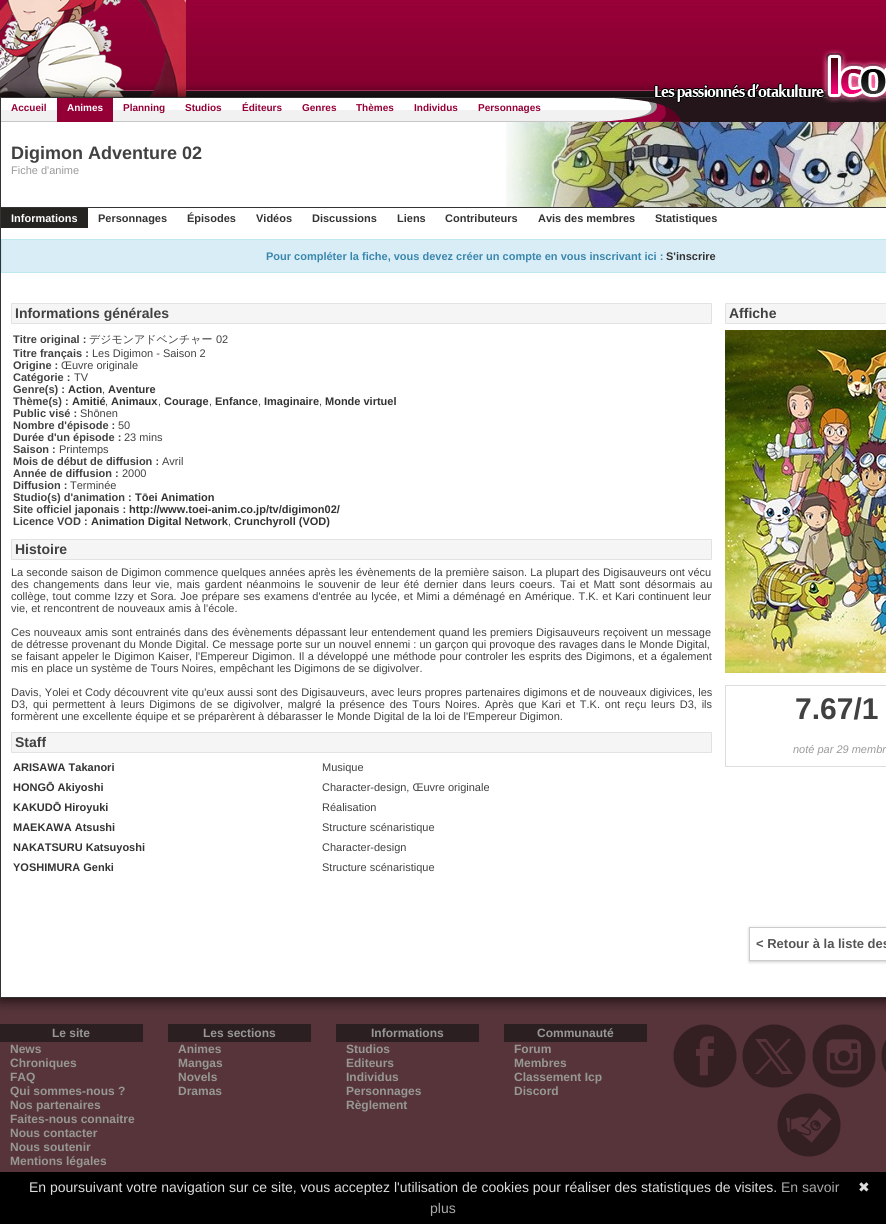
import math
import cairo

surface = cairo.ImageSurface(cairo.FORMAT_RGB24, 886, 1224)
ctx = cairo.Context(surface)
options = cairo.FontOptions()
options.set_hint_metrics(cairo.HINT_METRICS_OFF)
options.set_hint_style(cairo.HINT_STYLE_NONE)
ctx.set_font_options(options)
ctx.set_miter_limit(4)


def set_color(code):
    ctx.set_source_rgb(*(v / 255 for v in bytes.fromhex(code[-6:])))


def draw_text(x, y, s, family, size, color, bold=False, italic=False):
    ctx.select_font_face(family, cairo.FONT_SLANT_ITALIC if italic else cairo.FONT_SLANT_NORMAL, cairo.FONT_WEIGHT_BOLD if bold else cairo.FONT_WEIGHT_NORMAL)
    ctx.set_font_size(size)
    set_color(color)
    ctx.move_to(x, y)
    ctx.show_text(s)


def draw_spaced(x, y, s, letter, word):
    ctx.move_to(x, y)
    for ch in s:
        ctx.show_text(ch)
        ctx.rel_move_to(letter + word * (ch == ' '), 0)


def fill_rect(x, y, w, h, color):
    set_color(color)
    ctx.rectangle(x, y, w, h)
    ctx.fill()


def rounded_rect(x, y, w, h, r):
    ctx.new_sub_path()
    for i, (u, v) in enumerate([(x + w - r, y + h - r), (x + r, y + h - r), (x + r, y + r), (x + w - r, y + r)]):
        ctx.arc(u, v, r, i * math.pi / 2, (i + 1) * math.pi / 2)
    ctx.close_path()


def draw_shadow(x, y, w, h, r, blur, alpha):
    ctx.push_group_with_content(cairo.CONTENT_ALPHA)
    ctx.set_operator(cairo.OPERATOR_SOURCE)
    for i in range(15, -16, -2):
        e = blur * i / 6
        if min(w, h) + 2 * e > 0:
            ctx.set_source_rgba(0, 0, 0, alpha * math.erfc((i - 1) / 8.5) / 2)
            rounded_rect(x - e, y - e, w + 2 * e, h + 2 * e, max(0, min(r + e + blur * .6, min(w, h) / 2 + e)))
            ctx.fill()
    ctx.mask(ctx.pop_group())


def draw_image(path, x, y, w, h):
    ctx.save()
    ctx.set_source_surface(cairo.ImageSurface.create_from_png(path), x, y)
    ctx.rectangle(x, y, w, h)
    ctx.fill()
    ctx.restore()


set_color("#2c1f22")
ctx.paint()
draw_image("assets/img1.png", 0, 0, 886, 97)
draw_image("assets/img2.png", 0, 0, 186, 97)
fill_rect(0, 998, 886, 174, "#57343a")
set_color("#000000")
draw_shadow(0, 97, 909, 901, 0, 7.5, 1)
fill_rect(1, 122, 885, 875, "#ffffff")
ctx.rectangle(0.5, 97.5, 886, 900)
set_color("#333333")
ctx.set_line_width(1)
ctx.stroke()
draw_image("assets/img4.png", 1, 98, 885, 24)
draw_image("assets/img3.png", 654, 49, 232, 54)
draw_text(11, 111, "Accueil", "Liberation Sans", 10, "#940036", bold=True)
fill_rect(57, 98, 56, 24, "#940036")
draw_text(67, 111, "Animes", "Liberation Sans", 10, "#ffffff", bold=True)
draw_text(123, 111, "Planning", "Liberation Sans", 10, "#940036", bold=True)
draw_text(185, 111, "Studios", "Liberation Sans", 10, "#940036", bold=True)
draw_text(242, 111, "Éditeurs", "Liberation Sans", 10, "#940036", bold=True)
draw_text(302, 111, "Genres", "Liberation Sans", 10, "#940036", bold=True)
draw_text(356, 111, "Thèmes", "Liberation Sans", 10, "#940036", bold=True)
draw_text(414, 111, "Individus", "Liberation Sans", 10, "#940036", bold=True)
draw_text(478, 111, "Personnages", "Liberation Sans", 10, "#940036", bold=True)
draw_image("assets/img5.png", 506, 122, 380, 85)
fill_rect(1, 207, 885, 1, "#333333")
draw_image("assets/img6.png", 506, 122, 88, 85)
draw_text(11, 159, "Digimon Adventure 02", "Liberation Sans", 18, "#414141", bold=True)
draw_text(11, 174, "Fiche d'anime", "Liberation Sans", 11, "#9a9a9a")
fill_rect(1, 208, 87, 20, "#252420")
draw_text(11, 222, "Informations", "Liberation Sans", 11, "#ffffff", bold=True)
draw_text(98, 222, "Personnages", "Liberation Sans", 11, "#333333", bold=True)
draw_text(187, 222, "Épisodes", "Liberation Sans", 11, "#333333", bold=True)
draw_text(256, 222, "Vidéos", "Liberation Sans", 11, "#333333", bold=True)
draw_text(312, 222, "Discussions", "Liberation Sans", 11, "#333333", bold=True)
draw_text(397, 222, "Liens", "Liberation Sans", 11, "#333333", bold=True)
draw_text(445, 222, "Contributeurs", "Liberation Sans", 11, "#333333", bold=True)
draw_text(538, 222, "Avis des membres", "Liberation Sans", 11, "#333333", bold=True)
draw_text(655, 222, "Statistiques", "Liberation Sans", 11, "#333333", bold=True)
set_color("#d9edf7")
ctx.rectangle(1.5, 239.5, 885, 33)
ctx.fill_preserve()
set_color("#bce8f1")
ctx.stroke()
draw_text(266, 260, "Pour compléter la fiche, vous devez créer un compte en vous inscrivant ici :", "Liberation Sans", 11, "#3a87ad", bold=True)
draw_text(666, 260, "S'inscrire", "Liberation Sans", 11, "#333333", bold=True)
set_color("#f5f5f5")
rounded_rect(11.5, 303.5, 700, 20, 0.5)
ctx.fill_preserve()
set_color("#e2e2e2")
ctx.stroke()
draw_text(15, 318, "Informations générales", "Liberation Sans", 14, "#414141", bold=True)
draw_text(13, 343, "Titre original :", "Liberation Sans", 11, "#414141", bold=True)
draw_text(89, 343, "デジモンアドベンチャー", "WenQuanYi Zen Hei Medium", 11, "#414141")
draw_text(216, 343, "02", "Liberation Sans", 11, "#414141")
draw_text(13, 357, "Titre français :", "Liberation Sans", 11, "#414141", bold=True)
draw_text(92, 357, "Les Digimon - Saison 2", "Liberation Sans", 11, "#414141")
draw_text(13, 369, "Origine :", "Liberation Sans", 11, "#414141", bold=True)
draw_text(61, 369, "Œuvre originale", "Liberation Sans", 11, "#414141")
draw_text(13, 381, "Catégorie :", "Liberation Sans", 11, "#414141", bold=True)
draw_text(74, 381, "TV", "Liberation Sans", 11, "#414141")
draw_text(13, 393, "Genre(s) :", "Liberation Sans", 11, "#414141", bold=True)
draw_text(68, 393, "Action", "Liberation Sans", 11, "#333333", bold=True)
draw_text(102, 393, ",", "Liberation Sans", 11, "#414141")
draw_text(108, 393, "Aventure", "Liberation Sans", 11, "#333333", bold=True)
draw_text(13, 405, "Thème(s) :", "Liberation Sans", 11, "#414141", bold=True)
draw_text(72, 405, "Amitié", "Liberation Sans", 11, "#333333", bold=True)
draw_text(105, 405, ",", "Liberation Sans", 11, "#414141")
draw_text(111, 405, "Animaux", "Liberation Sans", 11, "#333333", bold=True)
draw_text(158, 405, ",", "Liberation Sans", 11, "#414141")
draw_text(164, 405, "Courage", "Liberation Sans", 11, "#333333", bold=True)
draw_text(209, 405, ",", "Liberation Sans", 11, "#414141")
draw_text(215, 405, "Enfance", "Liberation Sans", 11, "#333333", bold=True)
draw_text(258, 405, ",", "Liberation Sans", 11, "#414141")
draw_text(264, 405, "Imaginaire", "Liberation Sans", 11, "#333333", bold=True)
draw_text(319, 405, ",", "Liberation Sans", 11, "#414141")
draw_text(325, 405, "Monde virtuel", "Liberation Sans", 11, "#333333", bold=True)
draw_text(13, 417, "Public visé :", "Liberation Sans", 11, "#414141", bold=True)
draw_text(80, 417, "Shōnen", "Liberation Sans", 11, "#414141")
draw_text(13, 429, "Nombre d'épisode :", "Liberation Sans", 11, "#414141", bold=True)
draw_text(118, 429, "50", "Liberation Sans", 11, "#414141")
draw_text(13, 441, "Durée d'un épisode :", "Liberation Sans", 11, "#414141", bold=True)
draw_text(124, 441, "23 mins", "Liberation Sans", 11, "#414141")
draw_text(13, 453, "Saison :", "Liberation Sans", 11, "#414141", bold=True)
draw_text(59, 453, "Printemps", "Liberation Sans", 11, "#414141")
draw_text(13, 465, "Mois de début de diffusion :", "Liberation Sans", 11, "#414141", bold=True)
draw_text(162, 465, "Avril", "Liberation Sans", 11, "#414141")
draw_text(13, 477, "Année de diffusion :", "Liberation Sans", 11, "#414141", bold=True)
draw_text(122, 477, "2000", "Liberation Sans", 11, "#414141")
draw_text(13, 489, "Diffusion :", "Liberation Sans", 11, "#414141", bold=True)
draw_text(70, 489, "Terminée", "Liberation Sans", 11, "#414141")
draw_text(13, 501, "Studio(s) d'animation :", "Liberation Sans", 11, "#414141", bold=True)
draw_text(135, 501, "Tōei Animation", "Liberation Sans", 11, "#333333", bold=True)
draw_text(13, 513, "Site officiel japonais :", "Liberation Sans", 11, "#414141", bold=True)
draw_text(129, 513, "http://www.toei-anim.co.jp/tv/digimon02/", "Liberation Sans", 11, "#333333", bold=True)
draw_text(13, 525, "Licence VOD :", "Liberation Sans", 11, "#414141", bold=True)
draw_text(91, 525, "Animation Digital Network", "Liberation Sans", 11, "#333333", bold=True)
draw_text(228, 525, ",", "Liberation Sans", 11, "#414141")
draw_text(234, 525, "Crunchyroll (VOD)", "Liberation Sans", 11, "#333333", bold=True)
set_color("#f5f5f5")
rounded_rect(11.5, 539.5, 700, 20, 0.5)
ctx.fill_preserve()
set_color("#e2e2e2")
ctx.stroke()
draw_text(15, 554, "Histoire", "Liberation Sans", 14, "#414141", bold=True)
draw_text(11, 576, "La seconde saison de Digimon commence quelques années après les évènements de la première saison. La plupart des Digisauveurs ont vécu", "Liberation Sans", 11, "#414141")
draw_spaced(11, 588, "des changements dans leur vie, mais gardent néanmoins le souvenir de leur été dernier dans leurs coeurs. Tai et Matt sont désormais au", 0, 1.5)
draw_spaced(11, 600, "collège, tout comme Izzy et Sora. Joe prépare ses examens d'entrée au lycée, et Mimi a déménagé en Amérique. T.K. et Kari continuent leur", 0, 0.6)
draw_text(11, 612, "vie, et rencontrent de nouveaux amis à l'école.", "Liberation Sans", 11, "#414141")
draw_spaced(11, 636, "Ces nouveaux amis sont entrainés dans des évènements dépassant leur entendement quand les premiers Digisauveurs reçoivent un message", 0, 0.25)
draw_text(11, 648, "de détresse provenant du Monde Digital. Ce message porte sur un nouvel ennemi : un garçon qui provoque des ravages dans le Monde Digital,", "Liberation Sans", 11, "#414141")
draw_spaced(11, 660, "se faisant appeler le Digimon Kaiser, l'Empereur Digimon. Il a développé une méthode pour controler les esprits des Digimons, et a également", 0, 0.4)
draw_text(11, 672, "mis en place un système de Tours Noires, empêchant les Digimons de se digivolver.", "Liberation Sans", 11, "#414141")
draw_spaced(11, 696, "Davis, Yolei et Cody découvrent vite qu'eux aussi sont des Digisauveurs, avec leurs propres partenaires digimons et de nouveaux digivices, les", 0, 0.2)
draw_spaced(11, 708, "D3, qui permettent à leurs Digimons de se digivolver, malgré la présence des Tours Noires. Après que Kari et T.K. ont reçu leurs D3, ils", 0, 1.75)
draw_text(11, 720, "formèrent une excellente équipe et se préparèrent à débarasser le Monde Digital de la loi de l'Empereur Digimon.", "Liberation Sans", 11, "#414141")
set_color("#f5f5f5")
rounded_rect(11.5, 732.5, 700, 20, 0.5)
ctx.fill_preserve()
set_color("#e2e2e2")
ctx.stroke()
draw_text(15, 747, "Staff", "Liberation Sans", 14, "#414141", bold=True)
draw_text(13, 771, "ARISAWA Takanori", "Liberation Sans", 11, "#333333", bold=True)
draw_text(322, 771, "Musique", "Liberation Sans", 11, "#414141")
draw_text(13, 791, "HONGŌ Akiyoshi", "Liberation Sans", 11, "#333333", bold=True)
draw_text(322, 791, "Character-design, Œuvre originale", "Liberation Sans", 11, "#414141")
draw_text(13, 811, "KAKUDŌ Hiroyuki", "Liberation Sans", 11, "#333333", bold=True)
draw_text(322, 811, "Réalisation", "Liberation Sans", 11, "#414141")
draw_text(13, 831, "MAEKAWA Atsushi", "Liberation Sans", 11, "#333333", bold=True)
draw_text(322, 831, "Structure scénaristique", "Liberation Sans", 11, "#414141")
draw_text(13, 851, "NAKATSURU Katsuyoshi", "Liberation Sans", 11, "#333333", bold=True)
draw_text(322, 851, "Character-design", "Liberation Sans", 11, "#414141")
draw_text(13, 871, "YOSHIMURA Genki", "Liberation Sans", 11, "#333333", bold=True)
draw_text(322, 871, "Structure scénaristique", "Liberation Sans", 11, "#414141")
set_color("#f5f5f5")
rounded_rect(725.5, 303.5, 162, 20, 0.5)
ctx.fill_preserve()
set_color("#e2e2e2")
ctx.stroke()
draw_text(729, 318, "Affiche", "Liberation Sans", 14, "#414141", bold=True)
draw_image("assets/img7.png", 725, 330, 161, 343)
ctx.rectangle(725.5, 685.5, 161, 81)
set_color("#dddddd")
ctx.stroke()
draw_text(795, 719, "7.67/1", "Liberation Sans", 30, "#414141", bold=True)
draw_text(793, 753, "noté par 29 membr", "Liberation Sans", 11, "#9a9a9a", italic=True)
ctx.save()
ctx.set_fill_rule(cairo.FILL_RULE_EVEN_ODD)
ctx.new_path()
ctx.move_to(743, 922)
ctx.line_to(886, 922)
ctx.line_to(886, 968)
ctx.line_to(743, 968)
ctx.close_path()
ctx.move_to(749, 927)
ctx.line_to(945, 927)
ctx.line_to(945, 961)
ctx.line_to(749, 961)
ctx.close_path()
ctx.clip()
set_color("#cccccc")
draw_shadow(749, 928, 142, 34, 0, 1.5, 1)
ctx.restore()
ctx.rectangle(749.5, 927.5, 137, 33)
set_color("#cccccc")
ctx.stroke()
draw_text(756, 948, "< Retour à la liste des", "Liberation Sans", 13, "#555555", bold=True)
fill_rect(0, 1024, 143, 18, "#2c1f22")
draw_text(52, 1037, "Le site", "Liberation Sans", 12, "#979893", bold=True)
draw_text(10, 1053, "News", "Liberation Sans", 12, "#979893", bold=True)
draw_text(10, 1067, "Chroniques", "Liberation Sans", 12, "#979893", bold=True)
draw_text(10, 1081, "FAQ", "Liberation Sans", 12, "#979893", bold=True)
draw_text(10, 1095, "Qui sommes-nous ?", "Liberation Sans", 12, "#979893", bold=True)
draw_text(10, 1109, "Nos partenaires", "Liberation Sans", 12, "#979893", bold=True)
draw_text(10, 1123, "Faites-nous connaitre", "Liberation Sans", 12, "#979893", bold=True)
draw_text(10, 1137, "Nous contacter", "Liberation Sans", 12, "#979893", bold=True)
draw_text(10, 1151, "Nous soutenir", "Liberation Sans", 12, "#979893", bold=True)
draw_text(10, 1165, "Mentions légales", "Liberation Sans", 12, "#979893", bold=True)
fill_rect(168, 1024, 143, 18, "#2c1f22")
draw_text(203, 1037, "Les sections", "Liberation Sans", 12, "#979893", bold=True)
draw_text(178, 1053, "Animes", "Liberation Sans", 12, "#979893", bold=True)
draw_text(178, 1067, "Mangas", "Liberation Sans", 12, "#979893", bold=True)
draw_text(178, 1081, "Novels", "Liberation Sans", 12, "#979893", bold=True)
draw_text(178, 1095, "Dramas", "Liberation Sans", 12, "#979893", bold=True)
fill_rect(336, 1024, 143, 18, "#2c1f22")
draw_text(371, 1037, "Informations", "Liberation Sans", 12, "#979893", bold=True)
draw_text(346, 1053, "Studios", "Liberation Sans", 12, "#979893", bold=True)
draw_text(346, 1067, "Editeurs", "Liberation Sans", 12, "#979893", bold=True)
draw_text(346, 1081, "Individus", "Liberation Sans", 12, "#979893", bold=True)
draw_text(346, 1095, "Personnages", "Liberation Sans", 12, "#979893", bold=True)
draw_text(346, 1109, "Règlement", "Liberation Sans", 12, "#979893", bold=True)
fill_rect(504, 1024, 143, 18, "#2c1f22")
draw_text(537, 1037, "Communauté", "Liberation Sans", 12, "#979893", bold=True)
draw_text(514, 1053, "Forum", "Liberation Sans", 12, "#979893", bold=True)
draw_text(514, 1067, "Membres", "Liberation Sans", 12, "#979893", bold=True)
draw_text(514, 1081, "Classement Icp", "Liberation Sans", 12, "#979893", bold=True)
draw_text(514, 1095, "Discord", "Liberation Sans", 12, "#979893", bold=True)
draw_image("assets/img8.png", 673, 1024, 64, 64)
draw_image("assets/img9.png", 742, 1024, 64, 64)
draw_image("assets/img10.png", 812, 1024, 64, 64)
draw_image("assets/img11.png", 881, 1040, 5, 32)
draw_image("assets/img12.png", 777, 1093, 64, 64)
fill_rect(0, 1172, 886, 52, "#000000")
draw_text(29, 1192, "En poursuivant votre navigation sur ce site, vous acceptez l'utilisation de cookies pour réaliser des statistiques de visites.", "Liberation Sans", 14, "#dddddd")
draw_text(781, 1192, "En savoir", "Liberation Sans", 14, "#aaaaaa")
draw_text(858, 1192, "✖", "DejaVu Sans", 14, "#dddddd")
draw_text(430, 1213, "plus", "Liberation Sans", 14, "#aaaaaa")
surface.write_to_png("output.png")
